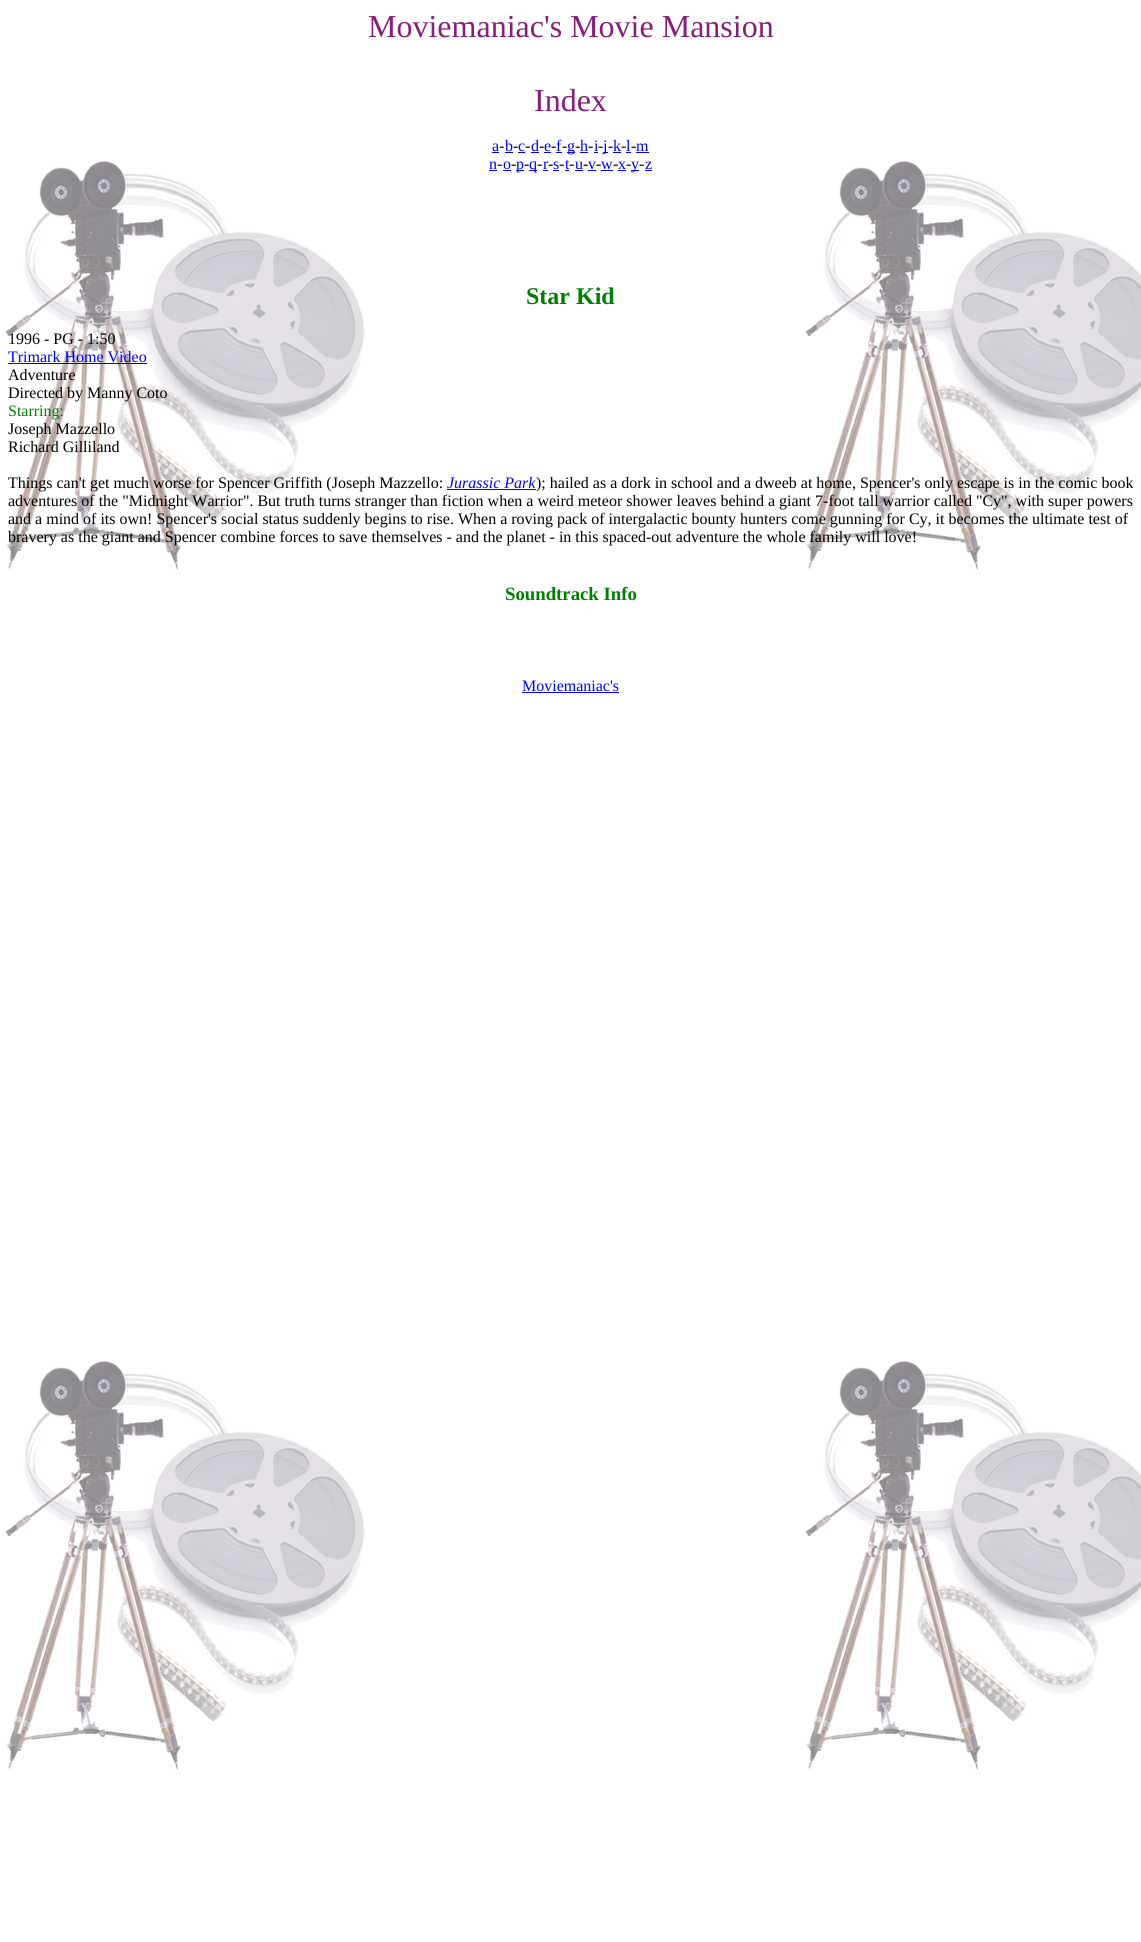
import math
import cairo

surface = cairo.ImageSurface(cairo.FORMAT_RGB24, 1141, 1942)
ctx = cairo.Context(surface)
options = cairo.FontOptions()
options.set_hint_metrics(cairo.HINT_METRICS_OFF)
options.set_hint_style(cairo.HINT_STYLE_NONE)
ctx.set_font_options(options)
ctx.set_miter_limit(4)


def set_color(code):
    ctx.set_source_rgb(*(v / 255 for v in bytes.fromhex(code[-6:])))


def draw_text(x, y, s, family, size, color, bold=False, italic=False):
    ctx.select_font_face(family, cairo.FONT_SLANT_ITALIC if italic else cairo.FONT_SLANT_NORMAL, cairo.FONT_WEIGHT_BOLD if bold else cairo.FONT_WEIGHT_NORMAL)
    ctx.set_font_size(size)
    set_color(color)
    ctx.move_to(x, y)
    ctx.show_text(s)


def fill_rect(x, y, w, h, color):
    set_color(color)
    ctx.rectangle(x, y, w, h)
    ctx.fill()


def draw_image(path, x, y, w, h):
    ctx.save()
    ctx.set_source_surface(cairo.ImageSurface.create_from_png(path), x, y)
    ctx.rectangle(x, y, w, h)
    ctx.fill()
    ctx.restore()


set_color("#ffffff")
ctx.paint()
draw_image("assets/img1.png", 2, 160, 1139, 1616)
draw_text(368, 37, "Moviemaniac's Movie Mansion", "Liberation Serif", 32, "#871f78")
draw_text(534, 111, "Index", "Liberation Serif", 32, "#871f78")
draw_text(492, 151, "a", "Liberation Serif", 16, "#0000ff")
fill_rect(492, 152, 7, 1, "#0000ff")
draw_text(499, 151, "-", "Liberation Serif", 16, "#000000")
draw_text(505, 151, "b", "Liberation Serif", 16, "#0000ff")
fill_rect(505, 152, 8, 1, "#0000ff")
draw_text(513, 151, "-", "Liberation Serif", 16, "#000000")
draw_text(518, 151, "c", "Liberation Serif", 16, "#0000ff")
fill_rect(518, 152, 7, 1, "#0000ff")
draw_text(525, 151, "-", "Liberation Serif", 16, "#000000")
draw_text(531, 151, "d", "Liberation Serif", 16, "#0000ff")
fill_rect(531, 152, 8, 1, "#0000ff")
draw_text(539, 151, "-", "Liberation Serif", 16, "#000000")
draw_text(544, 151, "e", "Liberation Serif", 16, "#0000ff")
fill_rect(544, 152, 7, 1, "#0000ff")
draw_text(551, 151, "-", "Liberation Serif", 16, "#000000")
draw_text(556, 151, "f", "Liberation Serif", 16, "#0000ff")
fill_rect(556, 152, 6, 1, "#0000ff")
draw_text(562, 151, "-", "Liberation Serif", 16, "#000000")
fill_rect(567, 152, 8, 1, "#0000ff")
draw_text(567, 151, "g", "Liberation Serif", 16, "#0000ff")
draw_text(575, 151, "-", "Liberation Serif", 16, "#000000")
draw_text(580, 151, "h", "Liberation Serif", 16, "#0000ff")
fill_rect(580, 152, 8, 1, "#0000ff")
draw_text(588, 151, "-", "Liberation Serif", 16, "#000000")
draw_text(594, 151, "i", "Liberation Serif", 16, "#0000ff")
fill_rect(594, 152, 4, 1, "#0000ff")
draw_text(598, 151, "-", "Liberation Serif", 16, "#000000")
fill_rect(603, 152, 5, 1, "#0000ff")
draw_text(603, 151, "j", "Liberation Serif", 16, "#0000ff")
draw_text(608, 151, "-", "Liberation Serif", 16, "#000000")
draw_text(613, 151, "k", "Liberation Serif", 16, "#0000ff")
fill_rect(613, 152, 8, 1, "#0000ff")
draw_text(621, 151, "-", "Liberation Serif", 16, "#000000")
draw_text(626, 151, "l", "Liberation Serif", 16, "#0000ff")
fill_rect(626, 152, 5, 1, "#0000ff")
draw_text(631, 151, "-", "Liberation Serif", 16, "#000000")
draw_text(636, 151, "m", "Liberation Serif", 16, "#0000ff")
fill_rect(636, 152, 13, 1, "#0000ff")
draw_text(489, 169, "n", "Liberation Serif", 16, "#0000ff")
fill_rect(489, 170, 8, 1, "#0000ff")
draw_text(497, 169, "-", "Liberation Serif", 16, "#000000")
draw_text(503, 169, "o", "Liberation Serif", 16, "#0000ff")
fill_rect(503, 170, 8, 1, "#0000ff")
draw_text(511, 169, "-", "Liberation Serif", 16, "#000000")
fill_rect(516, 170, 8, 1, "#0000ff")
draw_text(516, 169, "p", "Liberation Serif", 16, "#0000ff")
draw_text(524, 169, "-", "Liberation Serif", 16, "#000000")
fill_rect(529, 170, 8, 1, "#0000ff")
draw_text(529, 169, "q", "Liberation Serif", 16, "#0000ff")
draw_text(537, 169, "-", "Liberation Serif", 16, "#000000")
draw_text(543, 169, "r", "Liberation Serif", 16, "#0000ff")
fill_rect(543, 170, 5, 1, "#0000ff")
draw_text(548, 169, "-", "Liberation Serif", 16, "#000000")
draw_text(553, 169, "s", "Liberation Serif", 16, "#0000ff")
fill_rect(553, 170, 6, 1, "#0000ff")
draw_text(559, 169, "-", "Liberation Serif", 16, "#000000")
draw_text(565, 169, "t", "Liberation Serif", 16, "#0000ff")
fill_rect(565, 170, 4, 1, "#0000ff")
draw_text(569, 169, "-", "Liberation Serif", 16, "#000000")
draw_text(575, 169, "u", "Liberation Serif", 16, "#0000ff")
fill_rect(575, 170, 8, 1, "#0000ff")
draw_text(583, 169, "-", "Liberation Serif", 16, "#000000")
draw_text(588, 169, "v", "Liberation Serif", 16, "#0000ff")
fill_rect(588, 170, 8, 1, "#0000ff")
draw_text(596, 169, "-", "Liberation Serif", 16, "#000000")
draw_text(601, 169, "w", "Liberation Serif", 16, "#0000ff")
fill_rect(601, 170, 12, 1, "#0000ff")
draw_text(613, 169, "-", "Liberation Serif", 16, "#000000")
draw_text(618, 169, "x", "Liberation Serif", 16, "#0000ff")
fill_rect(618, 170, 8, 1, "#0000ff")
draw_text(626, 169, "-", "Liberation Serif", 16, "#000000")
fill_rect(631, 170, 8, 1, "#0000ff")
draw_text(631, 169, "y", "Liberation Serif", 16, "#0000ff")
draw_text(639, 169, "-", "Liberation Serif", 16, "#000000")
draw_text(645, 169, "z", "Liberation Serif", 16, "#0000ff")
fill_rect(645, 170, 7, 1, "#0000ff")
draw_text(526, 304, "Star Kid", "Liberation Serif", 24, "#008000", bold=True)
draw_text(8, 344, "1996 - PG - 1:50", "Liberation Serif", 16, "#000000")
draw_text(8, 362, "Trimark Home Video", "Liberation Serif", 16, "#0000ff")
fill_rect(8, 363, 139, 1, "#0000ff")
draw_text(8, 380, "Adventure", "Liberation Serif", 16, "#000000")
draw_text(8, 398, "Directed by Manny Coto", "Liberation Serif", 16, "#000000")
draw_text(8, 416, "Starring:", "Liberation Serif", 16, "#008000")
draw_text(8, 434, "Joseph Mazzello", "Liberation Serif", 16, "#000000")
draw_text(8, 452, "Richard Gilliland", "Liberation Serif", 16, "#000000")
draw_text(8, 488, "Things can't get much worse for Spencer Griffith (Joseph Mazzello:", "Liberation Serif", 16, "#000000")
draw_text(447, 488, "Jurassic Park", "Liberation Serif", 16, "#0000ff", italic=True)
fill_rect(447, 489, 89, 1, "#0000ff")
draw_text(536, 488, "); hailed as a dork in school and a dweeb at home, Spencer's only escape is in the comic book", "Liberation Serif", 16, "#000000")
draw_text(8, 506, "adventures of the \"Midnight Warrior\". But truth turns stranger than fiction when a weird meteor shower leaves behind a giant 7-foot tall warrior called \"Cy\", with super powers", "Liberation Serif", 16, "#000000")
draw_text(8, 524, "and a mind of its own! Spencer's social status suddenly begins to rise. When a roving pack of intergalactic bounty hunters come gunning for Cy, it becomes the ultimate test of", "Liberation Serif", 16, "#000000")
draw_text(8, 542, "bravery as the giant and Spencer combine forces to save themselves - and the planet - in this spaced-out adventure the whole family will love!", "Liberation Serif", 16, "#000000")
draw_text(505, 600, "Soundtrack Info", "Liberation Serif", 18.75, "#008000", bold=True)
draw_text(522, 691, "Moviemaniac's", "Liberation Serif", 16, "#0000ff")
fill_rect(522, 692, 97, 1, "#0000ff")
surface.write_to_png("output.png")
